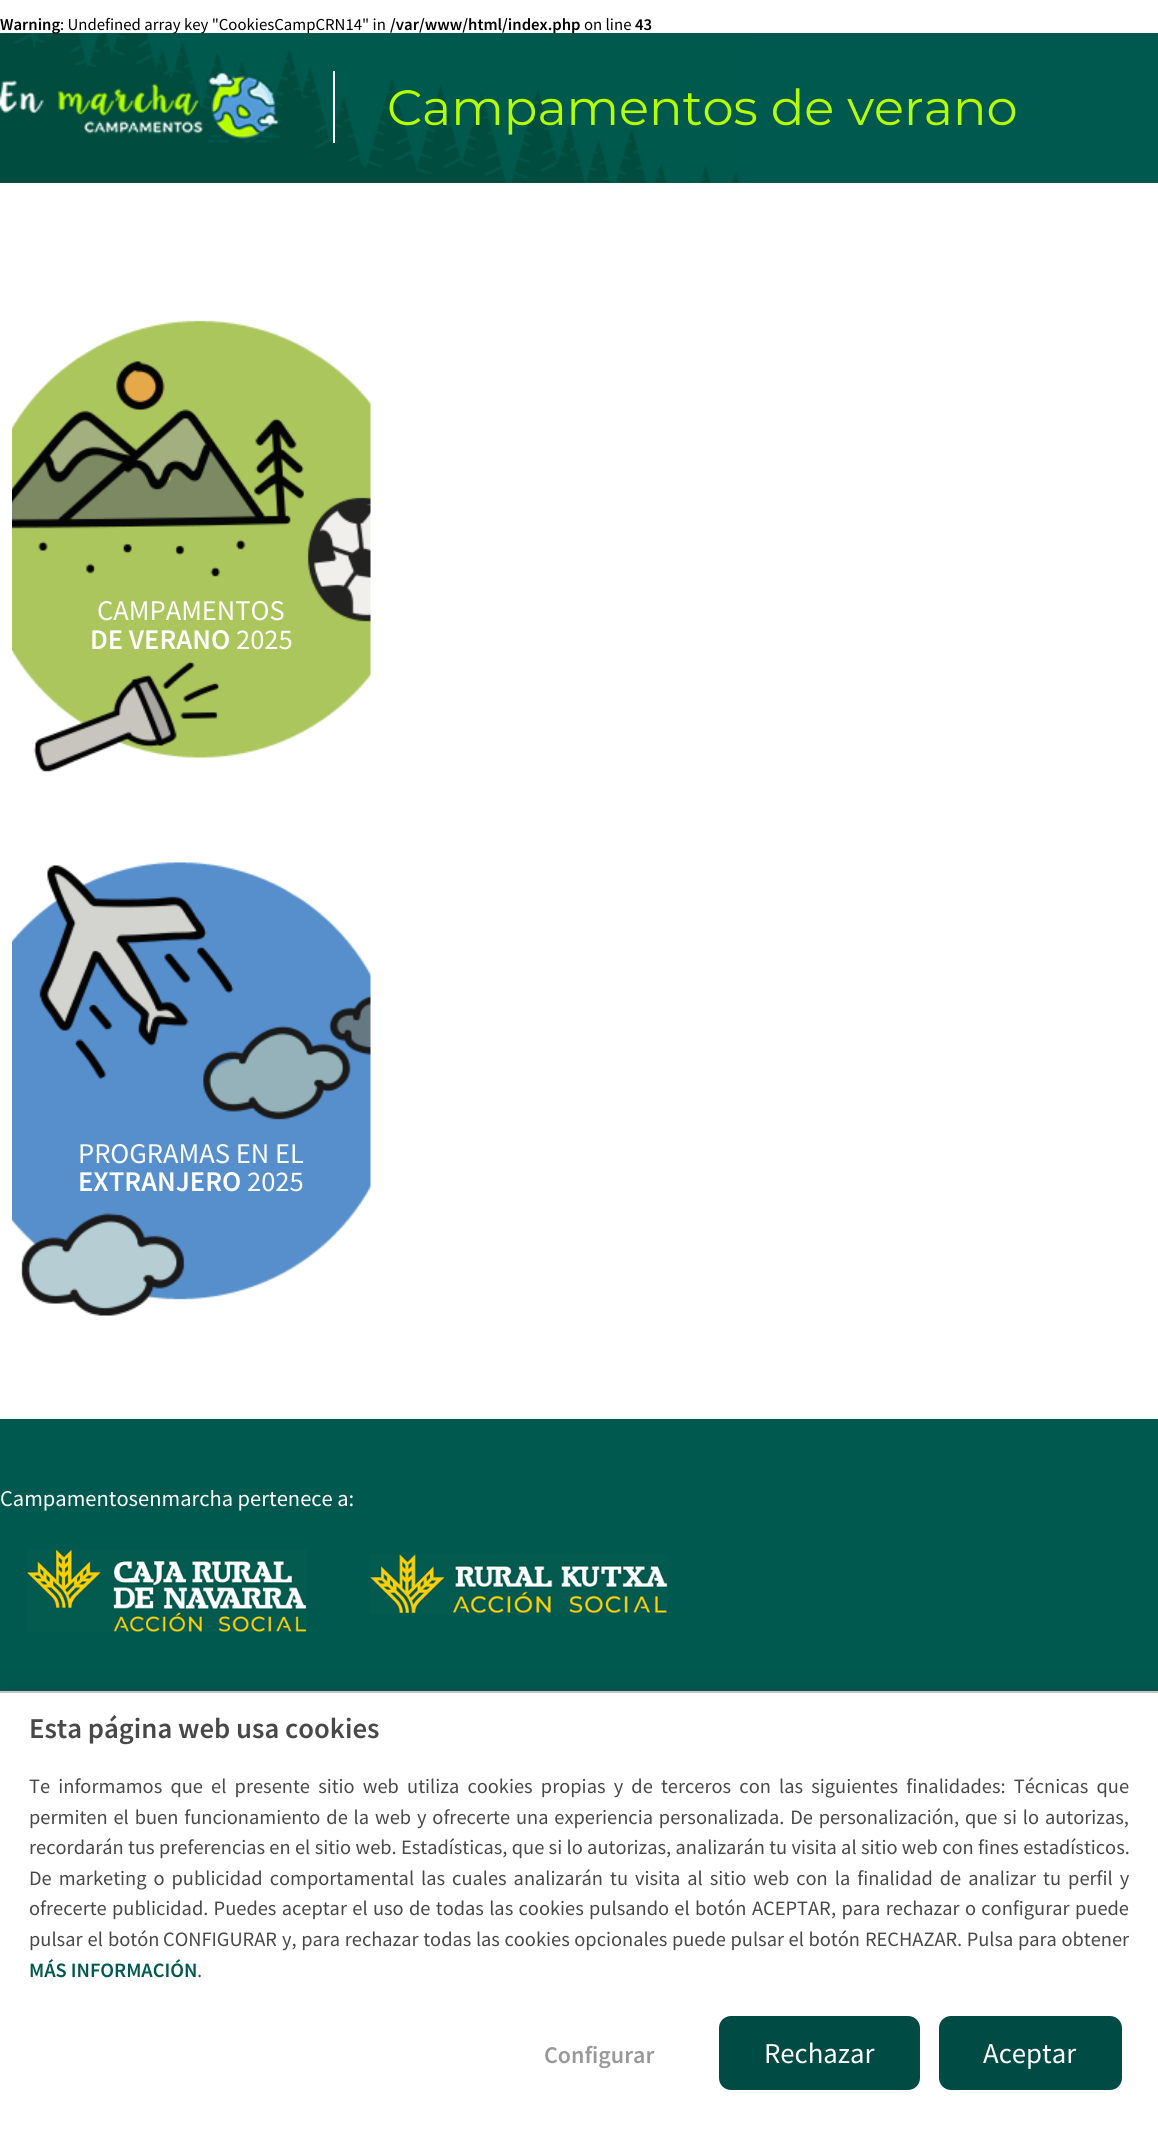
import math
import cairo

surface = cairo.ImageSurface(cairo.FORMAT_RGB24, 1158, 2134)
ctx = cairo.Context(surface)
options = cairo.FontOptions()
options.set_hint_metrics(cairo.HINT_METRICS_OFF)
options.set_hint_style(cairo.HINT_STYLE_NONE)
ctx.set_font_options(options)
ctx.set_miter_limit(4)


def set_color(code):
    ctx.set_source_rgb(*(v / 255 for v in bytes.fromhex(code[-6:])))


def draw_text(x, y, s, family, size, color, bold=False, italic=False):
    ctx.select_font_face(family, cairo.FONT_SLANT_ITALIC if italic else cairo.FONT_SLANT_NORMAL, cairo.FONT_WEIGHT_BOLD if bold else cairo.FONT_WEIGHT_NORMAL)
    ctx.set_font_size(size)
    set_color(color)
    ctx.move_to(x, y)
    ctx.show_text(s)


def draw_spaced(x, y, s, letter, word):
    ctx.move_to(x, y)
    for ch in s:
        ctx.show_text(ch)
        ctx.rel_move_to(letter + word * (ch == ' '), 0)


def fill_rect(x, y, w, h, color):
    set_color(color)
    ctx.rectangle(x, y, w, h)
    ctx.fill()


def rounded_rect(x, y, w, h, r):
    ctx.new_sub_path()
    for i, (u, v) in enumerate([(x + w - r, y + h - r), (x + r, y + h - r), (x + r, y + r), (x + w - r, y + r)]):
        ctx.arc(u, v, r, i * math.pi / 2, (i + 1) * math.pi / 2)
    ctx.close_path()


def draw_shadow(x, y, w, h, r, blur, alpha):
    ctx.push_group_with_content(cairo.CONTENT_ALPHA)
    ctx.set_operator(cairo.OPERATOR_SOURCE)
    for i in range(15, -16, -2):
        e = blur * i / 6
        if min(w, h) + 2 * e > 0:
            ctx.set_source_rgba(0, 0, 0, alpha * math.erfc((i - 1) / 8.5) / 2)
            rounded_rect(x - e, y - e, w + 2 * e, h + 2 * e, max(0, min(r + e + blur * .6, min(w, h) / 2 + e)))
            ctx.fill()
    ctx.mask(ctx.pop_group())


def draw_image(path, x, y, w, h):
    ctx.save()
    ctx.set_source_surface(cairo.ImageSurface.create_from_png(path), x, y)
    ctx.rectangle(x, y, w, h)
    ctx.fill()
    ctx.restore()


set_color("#ffffff")
ctx.paint()
draw_image("assets/img1.png", 0, 33, 740, 150)
draw_text(0, 30, "Warning", "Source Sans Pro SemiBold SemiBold", 16.75, "#000000")
draw_text(60, 30, ": Undefined array key \"CookiesCampCRN14\" in", "Source Sans Pro", 16.75, "#000000")
draw_text(390, 30, "/var/www/html/index.php", "Source Sans Pro SemiBold SemiBold", 16.75, "#000000")
draw_text(584, 30, "on line", "Source Sans Pro", 16.75, "#000000")
draw_text(635, 30, "43", "Source Sans Pro SemiBold SemiBold", 16.75, "#000000")
fill_rect(740, 33, 418, 150, "#00594f")
fill_rect(333, 71, 2, 72, "#ffffff")
draw_image("assets/img2.png", 0, 71, 280, 72)
draw_text(387, 125, "Campamentos de verano", "Montserrat", 49.5, "#b6ff00")
draw_image("assets/img3.png", 12, 320, 359, 453)
draw_text(97, 620, "CAMPAMENTOS", "Source Sans Pro", 28.5, "#ffffff")
draw_text(90, 649, "DE VERANO", "Source Sans Pro SemiBold SemiBold", 28.5, "#ffffff")
draw_text(236, 649, "2025", "Source Sans Pro", 28.5, "#ffffff")
draw_image("assets/img4.png", 12, 862, 359, 454)
draw_text(78, 1163, "PROGRAMAS EN EL", "Source Sans Pro", 28.5, "#ffffff")
draw_text(78, 1191, "EXTRANJERO", "Source Sans Pro SemiBold SemiBold", 28.5, "#ffffff")
draw_text(247, 1191, "2025", "Source Sans Pro", 28.5, "#ffffff")
fill_rect(0, 1419, 1158, 272, "#00594f")
draw_text(0, 1506, "Campamentosenmarcha pertenece a:", "Source Sans Pro", 22.5, "#ffffff")
draw_image("assets/img5.png", 27, 1549, 280, 83)
draw_image("assets/img6.png", 370, 1554, 298, 60)
set_color("#000000")
draw_shadow(0, 1700, 1158, 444, 0, 15, 0.19)
fill_rect(0, 1693, 1158, 441, "#ffffff")
fill_rect(0, 1691, 1158, 2, "#c4c4c4")
draw_text(29, 1738, "Esta página web usa cookies", "Source Sans Pro SemiBold SemiBold", 28.75, "#484848")
ctx.select_font_face("Source Sans Pro")
ctx.set_font_size(20.4)
draw_spaced(29, 1793, "Te informamos que el presente sitio web utiliza cookies propias y de terceros con las siguientes finalidades: Técnicas que", 0, 4.1)
draw_spaced(29, 1824, "permiten el buen funcionamiento de la web y ofrecerte una experiencia personalizada. De personalización, que si lo autorizas,", 0, 1.8)
draw_spaced(29, 1854, "recordarán tus preferencias en el sitio web. Estadísticas, que si lo autorizas, analizarán tu visita al sitio web con fines estadísticos.", 0, 0.25)
draw_spaced(29, 1885, "De marketing o publicidad comportamental las cuales analizarán tu visita al sitio web con la finalidad de analizar tu perfil y", 0, 2.9)
draw_spaced(29, 1915, "ofrecerte publicidad. Puedes aceptar el uso de todas las cookies pulsando el botón", 0, 1.25)
draw_text(752, 1915, "ACEPTAR", "Source Sans Pro", 20.4, "#484848")
draw_spaced(831, 1915, ", para rechazar o configurar puede", 0, 1.25)
draw_spaced(29, 1946, "pulsar el botón", 0, 1)
draw_text(163, 1946, "CONFIGURAR", "Source Sans Pro", 20.4, "#484848")
draw_spaced(282, 1946, "y, para rechazar todas las cookies opcionales puede pulsar el botón", 0, 0.5)
draw_text(865, 1946, "RECHAZAR", "Source Sans Pro", 20.4, "#484848")
draw_spaced(957, 1946, ". Pulsa para obtener", 0, 0.5)
draw_text(29, 1977, "MÁS INFORMACIÓN", "Source Sans Pro SemiBold SemiBold", 20.4, "#00594f")
draw_text(197, 1977, ".", "Source Sans Pro", 20.4, "#484848")
draw_text(544, 2063, "Configurar", "Source Sans Pro SemiBold SemiBold", 24, "#999999")
set_color("#004c45")
rounded_rect(719, 2016, 201, 74, 12)
ctx.fill()
draw_text(764, 2063, "Rechazar", "Source Sans Pro", 28.75, "#ffffff")
set_color("#004c45")
rounded_rect(939, 2016, 183, 74, 12)
ctx.fill()
draw_text(983, 2063, "Aceptar", "Source Sans Pro", 28.75, "#ffffff")
surface.write_to_png("output.png")
